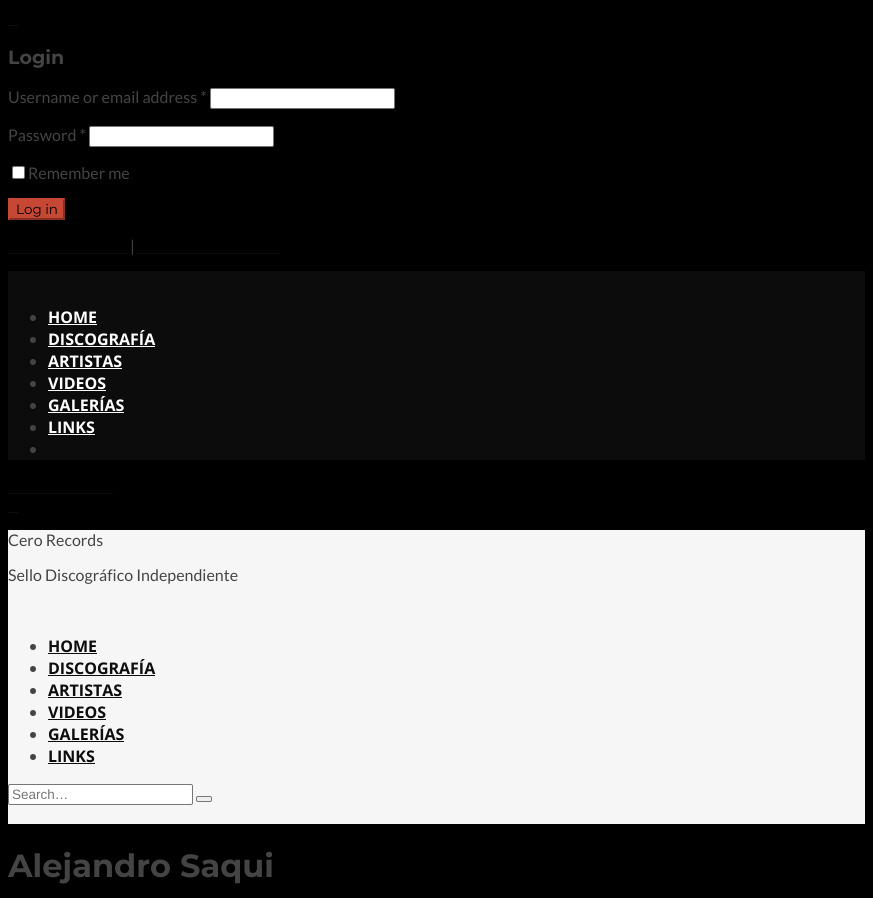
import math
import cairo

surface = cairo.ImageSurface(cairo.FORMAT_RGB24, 873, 898)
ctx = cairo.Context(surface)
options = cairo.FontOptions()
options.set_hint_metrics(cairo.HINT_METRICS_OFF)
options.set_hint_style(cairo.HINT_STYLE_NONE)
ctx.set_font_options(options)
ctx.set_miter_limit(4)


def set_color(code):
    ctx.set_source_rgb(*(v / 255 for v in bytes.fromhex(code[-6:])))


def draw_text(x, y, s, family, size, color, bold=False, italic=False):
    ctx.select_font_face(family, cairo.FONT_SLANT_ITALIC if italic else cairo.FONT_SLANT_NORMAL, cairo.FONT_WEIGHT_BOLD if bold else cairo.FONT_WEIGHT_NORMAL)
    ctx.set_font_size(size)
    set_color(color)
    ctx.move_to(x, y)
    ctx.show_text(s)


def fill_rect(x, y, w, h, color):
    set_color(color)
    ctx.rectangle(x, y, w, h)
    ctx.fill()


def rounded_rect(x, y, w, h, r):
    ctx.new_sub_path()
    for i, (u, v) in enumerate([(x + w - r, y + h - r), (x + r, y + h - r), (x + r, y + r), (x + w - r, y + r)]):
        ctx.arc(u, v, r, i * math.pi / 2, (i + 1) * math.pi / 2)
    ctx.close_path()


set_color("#000000")
ctx.paint()
fill_rect(8, 25, 10, 1, "#0d0d0d")
draw_text(8, 64, "Login", "Montserrat", 19, "#444444", bold=True)
draw_text(8, 103, "Username or email address *", "Lato", 16, "#444444")
set_color("#ffffff")
rounded_rect(210.5, 88.5, 184, 20, 1.5)
ctx.fill_preserve()
set_color("#767676")
ctx.set_line_width(1)
ctx.stroke()
draw_text(8, 141, "Password *", "Lato", 16, "#444444")
set_color("#ffffff")
rounded_rect(89.5, 126.5, 184, 20, 1.5)
ctx.fill_preserve()
set_color("#767676")
ctx.stroke()
set_color("#ffffff")
rounded_rect(12.5, 166.5, 12, 12, 1.5)
ctx.fill_preserve()
set_color("#767676")
ctx.stroke()
draw_text(28, 179, "Remember me", "Lato", 16, "#444444")
fill_rect(8, 198, 57, 22, "#c74735")
set_color("#852f23")
ctx.new_path()
ctx.move_to(65, 198)
ctx.line_to(65, 220)
ctx.line_to(63, 218)
ctx.line_to(63, 200)
ctx.close_path()
ctx.fill()
ctx.new_path()
ctx.move_to(65, 220)
ctx.line_to(8, 220)
ctx.line_to(10, 218)
ctx.line_to(63, 218)
ctx.close_path()
ctx.fill()
set_color("#c74735")
ctx.new_path()
ctx.move_to(8, 220)
ctx.line_to(8, 198)
ctx.line_to(10, 200)
ctx.line_to(10, 218)
ctx.close_path()
ctx.fill()
draw_text(16, 214, "Log in", "Montserrat", 13.5, "#000000")
fill_rect(8, 253, 119, 1, "#0d0d0d")
draw_text(130, 252, "|", "Lato", 16, "#444444")
fill_rect(137, 253, 143, 1, "#0d0d0d")
fill_rect(8, 271, 857, 189, "#0c0c0c")
set_color("#444444")
ctx.new_path()
ctx.arc(33, 318, 3, 0, 2 * math.pi)
ctx.fill()
draw_text(48, 323, "HOME", "Open Sans", 16, "#ffffff", bold=True)
fill_rect(48, 324, 49, 1, "#ffffff")
set_color("#444444")
ctx.new_path()
ctx.arc(33, 340, 3, 0, 2 * math.pi)
ctx.fill()
draw_text(48, 345, "DISCOGRAFÍA", "Open Sans", 16, "#ffffff", bold=True)
fill_rect(48, 346, 107, 1, "#ffffff")
set_color("#444444")
ctx.new_path()
ctx.arc(33, 362, 3, 0, 2 * math.pi)
ctx.fill()
draw_text(48, 367, "ARTISTAS", "Open Sans", 16, "#ffffff", bold=True)
fill_rect(48, 368, 74, 1, "#ffffff")
set_color("#444444")
ctx.new_path()
ctx.arc(33, 384, 3, 0, 2 * math.pi)
ctx.fill()
draw_text(48, 389, "VIDEOS", "Open Sans", 16, "#ffffff", bold=True)
fill_rect(48, 390, 58, 1, "#ffffff")
set_color("#444444")
ctx.new_path()
ctx.arc(33, 406, 3, 0, 2 * math.pi)
ctx.fill()
draw_text(48, 411, "GALERÍAS", "Open Sans", 16, "#ffffff", bold=True)
fill_rect(48, 412, 76, 1, "#ffffff")
set_color("#444444")
ctx.new_path()
ctx.arc(33, 428, 3, 0, 2 * math.pi)
ctx.fill()
draw_text(48, 433, "LINKS", "Open Sans", 16, "#ffffff", bold=True)
fill_rect(48, 434, 47, 1, "#ffffff")
set_color("#444444")
ctx.new_path()
ctx.arc(33, 450, 3, 0, 2 * math.pi)
ctx.fill()
fill_rect(8, 493, 105, 1, "#0d0d0d")
fill_rect(8, 512, 10, 1, "#0d0d0d")
fill_rect(8, 530, 857, 294, "#f6f6f6")
draw_text(8, 546, "Cero Records", "Lato", 16, "#444444")
draw_text(8, 581, "Sello Discográfico Independiente", "Lato", 16, "#444444")
ctx.new_path()
ctx.arc(33, 647, 3, 0, 2 * math.pi)
ctx.fill()
draw_text(48, 652, "HOME", "Open Sans", 16, "#0d0d0d", bold=True)
fill_rect(48, 653, 49, 1, "#0d0d0d")
set_color("#444444")
ctx.new_path()
ctx.arc(33, 669, 3, 0, 2 * math.pi)
ctx.fill()
draw_text(48, 674, "DISCOGRAFÍA", "Open Sans", 16, "#0d0d0d", bold=True)
fill_rect(48, 675, 107, 1, "#0d0d0d")
set_color("#444444")
ctx.new_path()
ctx.arc(33, 691, 3, 0, 2 * math.pi)
ctx.fill()
draw_text(48, 696, "ARTISTAS", "Open Sans", 16, "#0d0d0d", bold=True)
fill_rect(48, 697, 74, 1, "#0d0d0d")
set_color("#444444")
ctx.new_path()
ctx.arc(33, 713, 3, 0, 2 * math.pi)
ctx.fill()
draw_text(48, 718, "VIDEOS", "Open Sans", 16, "#0d0d0d", bold=True)
fill_rect(48, 719, 58, 1, "#0d0d0d")
set_color("#444444")
ctx.new_path()
ctx.arc(33, 735, 3, 0, 2 * math.pi)
ctx.fill()
draw_text(48, 740, "GALERÍAS", "Open Sans", 16, "#0d0d0d", bold=True)
fill_rect(48, 741, 76, 1, "#0d0d0d")
set_color("#444444")
ctx.new_path()
ctx.arc(33, 757, 3, 0, 2 * math.pi)
ctx.fill()
draw_text(48, 762, "LINKS", "Open Sans", 16, "#0d0d0d", bold=True)
fill_rect(48, 763, 47, 1, "#0d0d0d")
set_color("#ffffff")
rounded_rect(8.5, 784.5, 184, 20, 1.5)
ctx.fill_preserve()
set_color("#767676")
ctx.stroke()
draw_text(12, 799, "Search…", "Liberation Sans", 13.5, "#757575")
set_color("#efefef")
rounded_rect(196.5, 796.5, 15, 5, 1.5)
ctx.fill_preserve()
set_color("#767676")
ctx.stroke()
draw_text(8, 877, "Alejandro Saqui", "Montserrat", 32, "#444444", bold=True)
surface.write_to_png("output.png")
